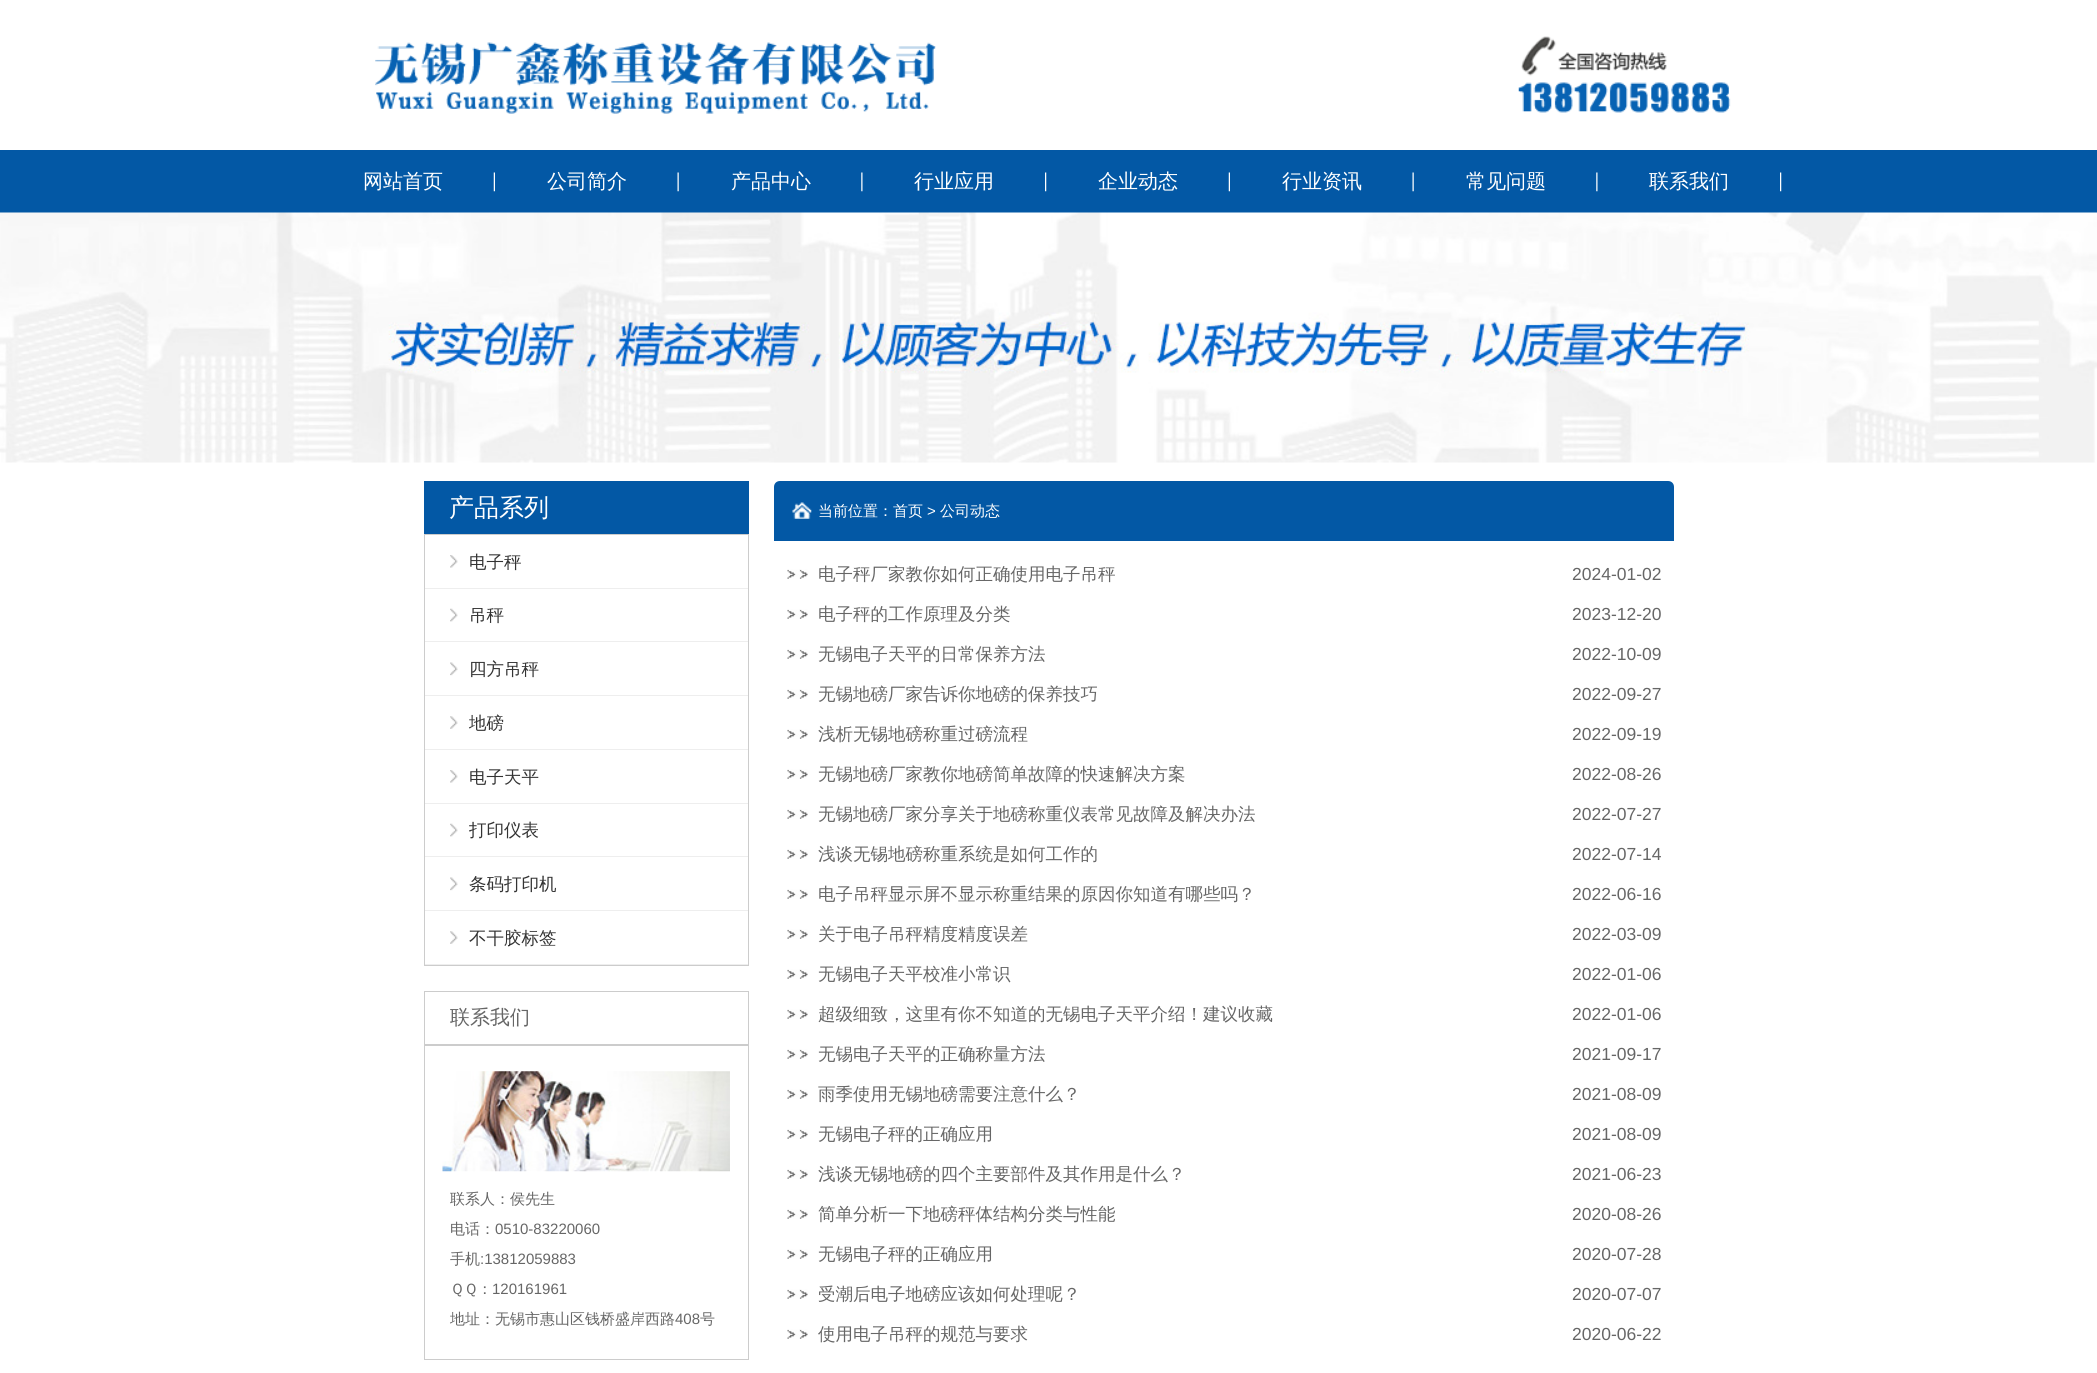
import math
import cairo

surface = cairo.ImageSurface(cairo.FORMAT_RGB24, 2097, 1373)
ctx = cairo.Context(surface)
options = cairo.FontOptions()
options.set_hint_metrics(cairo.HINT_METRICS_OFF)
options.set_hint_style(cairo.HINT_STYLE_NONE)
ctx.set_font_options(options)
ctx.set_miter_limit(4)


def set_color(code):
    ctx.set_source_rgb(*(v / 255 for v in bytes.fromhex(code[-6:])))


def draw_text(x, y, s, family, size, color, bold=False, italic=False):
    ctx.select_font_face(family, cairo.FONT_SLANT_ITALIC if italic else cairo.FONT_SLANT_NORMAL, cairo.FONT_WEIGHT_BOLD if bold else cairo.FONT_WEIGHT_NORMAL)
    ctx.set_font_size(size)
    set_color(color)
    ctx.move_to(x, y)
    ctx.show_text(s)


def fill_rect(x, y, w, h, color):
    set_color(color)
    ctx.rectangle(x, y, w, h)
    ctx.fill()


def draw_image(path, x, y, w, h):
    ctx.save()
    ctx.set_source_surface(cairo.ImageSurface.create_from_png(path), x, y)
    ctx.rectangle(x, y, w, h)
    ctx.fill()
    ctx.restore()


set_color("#ffffff")
ctx.paint()
draw_image("assets/img1.png", 375, 42, 561, 72)
draw_image("assets/img2.png", 1518, 36, 213, 77)
fill_rect(0, 150, 2097, 63, "#0358a5")
draw_image("assets/img3.png", 493, 172, 2, 20)
draw_text(363, 188, "网站首页", "WenQuanYi Zen Hei Medium", 20, "#ffffff")
draw_image("assets/img4.png", 677, 172, 2, 20)
draw_text(547, 188, "公司简介", "WenQuanYi Zen Hei Medium", 20, "#ffffff")
draw_image("assets/img5.png", 861, 172, 2, 20)
draw_text(731, 188, "产品中心", "WenQuanYi Zen Hei Medium", 20, "#ffffff")
draw_image("assets/img6.png", 1045, 172, 2, 20)
draw_text(914, 188, "行业应用", "WenQuanYi Zen Hei Medium", 20, "#ffffff")
draw_image("assets/img3.png", 1228, 172, 2, 20)
draw_text(1098, 188, "企业动态", "WenQuanYi Zen Hei Medium", 20, "#ffffff")
draw_image("assets/img4.png", 1412, 172, 2, 20)
draw_text(1282, 188, "行业资讯", "WenQuanYi Zen Hei Medium", 20, "#ffffff")
draw_image("assets/img5.png", 1596, 172, 2, 20)
draw_text(1466, 188, "常见问题", "WenQuanYi Zen Hei Medium", 20, "#ffffff")
draw_image("assets/img6.png", 1780, 172, 2, 20)
draw_text(1649, 188, "联系我们", "WenQuanYi Zen Hei Medium", 20, "#ffffff")
draw_image("assets/img7.png", 0, 212, 2097, 251)
fill_rect(424, 481, 325, 53, "#0358a5")
draw_text(449, 516, "产品系列", "WenQuanYi Zen Hei Medium", 25, "#ffffff")
ctx.rectangle(424.5, 534.5, 324, 431)
set_color("#cccccc")
ctx.set_line_width(1)
ctx.stroke()
draw_image("assets/img8.png", 450, 555, 8, 13)
fill_rect(425, 588, 323, 1, "#eeeeee")
draw_text(469, 568, "电子秤", "WenQuanYi Zen Hei Medium", 17.5, "#333333")
draw_image("assets/img9.png", 450, 608, 8, 14)
fill_rect(425, 641, 323, 1, "#eeeeee")
draw_text(469, 621, "吊秤", "WenQuanYi Zen Hei Medium", 17.5, "#333333")
draw_image("assets/img10.png", 450, 662, 8, 14)
fill_rect(425, 695, 323, 1, "#eeeeee")
draw_text(469, 675, "四方吊秤", "WenQuanYi Zen Hei Medium", 17.5, "#333333")
draw_image("assets/img11.png", 450, 716, 8, 13)
fill_rect(425, 749, 323, 1, "#eeeeee")
draw_text(469, 729, "地磅", "WenQuanYi Zen Hei Medium", 17.5, "#333333")
draw_image("assets/img8.png", 450, 770, 8, 13)
fill_rect(425, 803, 323, 1, "#eeeeee")
draw_text(469, 783, "电子天平", "WenQuanYi Zen Hei Medium", 17.5, "#333333")
draw_image("assets/img9.png", 450, 823, 8, 14)
fill_rect(425, 856, 323, 1, "#eeeeee")
draw_text(469, 836, "打印仪表", "WenQuanYi Zen Hei Medium", 17.5, "#333333")
draw_image("assets/img10.png", 450, 877, 8, 14)
fill_rect(425, 910, 323, 1, "#eeeeee")
draw_text(469, 890, "条码打印机", "WenQuanYi Zen Hei Medium", 17.5, "#333333")
draw_image("assets/img11.png", 450, 931, 8, 13)
fill_rect(425, 964, 323, 1, "#eeeeee")
draw_text(469, 944, "不干胶标签", "WenQuanYi Zen Hei Medium", 17.5, "#333333")
ctx.rectangle(424.5, 991.5, 324, 53)
set_color("#cccccc")
ctx.stroke()
draw_text(450, 1024, "联系我们", "WenQuanYi Zen Hei Medium", 20, "#666666")
draw_image("assets/img12.png", 442, 1071, 288, 101)
ctx.rectangle(424.5, 1045.5, 324, 314)
set_color("#cccccc")
ctx.stroke()
draw_text(450, 1204, "联系人：侯先生", "WenQuanYi Zen Hei Medium", 15, "#666666")
draw_text(450, 1234, "电话：", "WenQuanYi Zen Hei Medium", 15, "#666666")
draw_text(495, 1234, "0510-83220060", "Liberation Sans", 15, "#666666")
draw_text(450, 1264, "手机", "WenQuanYi Zen Hei Medium", 15, "#666666")
draw_text(480, 1264, ":13812059883", "Liberation Sans", 15, "#666666")
draw_text(450, 1294, "ＱＱ：", "WenQuanYi Zen Hei Medium", 15, "#666666")
draw_text(492, 1294, "120161961", "Liberation Sans", 15, "#666666")
draw_text(450, 1324, "地址：无锡市惠山区钱桥盛岸西路", "WenQuanYi Zen Hei Medium", 15, "#666666")
draw_text(675, 1324, "408", "Liberation Sans", 15, "#666666")
draw_text(700, 1324, "号", "WenQuanYi Zen Hei Medium", 15, "#666666")
set_color("#0358a5")
ctx.new_path()
ctx.move_to(780, 481)
ctx.line_to(1668, 481)
ctx.curve_to(1671.5, 481, 1674, 483.5, 1674, 487)
ctx.line_to(1674, 541)
ctx.line_to(774, 541)
ctx.line_to(774, 487)
ctx.curve_to(774, 483.5, 776.5, 481, 780, 481)
ctx.close_path()
ctx.fill()
draw_image("assets/img13.png", 792, 502, 20, 17)
draw_text(818, 516, "当前位置：首页", "WenQuanYi Zen Hei Medium", 15, "#ffffff")
draw_text(927, 516, ">", "Liberation Sans", 15, "#ffffff")
draw_text(940, 516, "公司动态", "WenQuanYi Zen Hei Medium", 15, "#ffffff")
draw_image("assets/img14.png", 787, 569, 21, 10)
draw_text(818, 580, "电子秤厂家教你如何正确使用电子吊秤", "WenQuanYi Zen Hei Medium", 17.5, "#666666")
draw_text(1572, 580, "2024-01-02", "Liberation Sans", 17.5, "#666666")
draw_image("assets/img14.png", 787, 609, 21, 10)
draw_text(818, 620, "电子秤的工作原理及分类", "WenQuanYi Zen Hei Medium", 17.5, "#666666")
draw_text(1572, 620, "2023-12-20", "Liberation Sans", 17.5, "#666666")
draw_image("assets/img14.png", 787, 649, 21, 10)
draw_text(818, 660, "无锡电子天平的日常保养方法", "WenQuanYi Zen Hei Medium", 17.5, "#666666")
draw_text(1572, 660, "2022-10-09", "Liberation Sans", 17.5, "#666666")
draw_image("assets/img14.png", 787, 689, 21, 10)
draw_text(818, 700, "无锡地磅厂家告诉你地磅的保养技巧", "WenQuanYi Zen Hei Medium", 17.5, "#666666")
draw_text(1572, 700, "2022-09-27", "Liberation Sans", 17.5, "#666666")
draw_image("assets/img14.png", 787, 729, 21, 10)
draw_text(818, 740, "浅析无锡地磅称重过磅流程", "WenQuanYi Zen Hei Medium", 17.5, "#666666")
draw_text(1572, 740, "2022-09-19", "Liberation Sans", 17.5, "#666666")
draw_image("assets/img14.png", 787, 769, 21, 10)
draw_text(818, 780, "无锡地磅厂家教你地磅简单故障的快速解决方案", "WenQuanYi Zen Hei Medium", 17.5, "#666666")
draw_text(1572, 780, "2022-08-26", "Liberation Sans", 17.5, "#666666")
draw_image("assets/img14.png", 787, 809, 21, 10)
draw_text(818, 820, "无锡地磅厂家分享关于地磅称重仪表常见故障及解决办法", "WenQuanYi Zen Hei Medium", 17.5, "#666666")
draw_text(1572, 820, "2022-07-27", "Liberation Sans", 17.5, "#666666")
draw_image("assets/img14.png", 787, 849, 21, 10)
draw_text(818, 860, "浅谈无锡地磅称重系统是如何工作的", "WenQuanYi Zen Hei Medium", 17.5, "#666666")
draw_text(1572, 860, "2022-07-14", "Liberation Sans", 17.5, "#666666")
draw_image("assets/img14.png", 787, 889, 21, 10)
draw_text(818, 900, "电子吊秤显示屏不显示称重结果的原因你知道有哪些吗？", "WenQuanYi Zen Hei Medium", 17.5, "#666666")
draw_text(1572, 900, "2022-06-16", "Liberation Sans", 17.5, "#666666")
draw_image("assets/img14.png", 787, 929, 21, 10)
draw_text(818, 940, "关于电子吊秤精度精度误差", "WenQuanYi Zen Hei Medium", 17.5, "#666666")
draw_text(1572, 940, "2022-03-09", "Liberation Sans", 17.5, "#666666")
draw_image("assets/img14.png", 787, 969, 21, 10)
draw_text(818, 980, "无锡电子天平校准小常识", "WenQuanYi Zen Hei Medium", 17.5, "#666666")
draw_text(1572, 980, "2022-01-06", "Liberation Sans", 17.5, "#666666")
draw_image("assets/img14.png", 787, 1009, 21, 10)
draw_text(818, 1020, "超级细致，这里有你不知道的无锡电子天平介绍！建议收藏", "WenQuanYi Zen Hei Medium", 17.5, "#666666")
draw_text(1572, 1020, "2022-01-06", "Liberation Sans", 17.5, "#666666")
draw_image("assets/img14.png", 787, 1049, 21, 10)
draw_text(818, 1060, "无锡电子天平的正确称量方法", "WenQuanYi Zen Hei Medium", 17.5, "#666666")
draw_text(1572, 1060, "2021-09-17", "Liberation Sans", 17.5, "#666666")
draw_image("assets/img14.png", 787, 1089, 21, 10)
draw_text(818, 1100, "雨季使用无锡地磅需要注意什么？", "WenQuanYi Zen Hei Medium", 17.5, "#666666")
draw_text(1572, 1100, "2021-08-09", "Liberation Sans", 17.5, "#666666")
draw_image("assets/img14.png", 787, 1129, 21, 10)
draw_text(818, 1140, "无锡电子秤的正确应用", "WenQuanYi Zen Hei Medium", 17.5, "#666666")
draw_text(1572, 1140, "2021-08-09", "Liberation Sans", 17.5, "#666666")
draw_image("assets/img15.png", 787, 1169, 21, 10)
draw_text(818, 1180, "浅谈无锡地磅的四个主要部件及其作用是什么？", "WenQuanYi Zen Hei Medium", 17.5, "#666666")
draw_text(1572, 1180, "2021-06-23", "Liberation Sans", 17.5, "#666666")
draw_image("assets/img14.png", 787, 1209, 21, 10)
draw_text(818, 1220, "简单分析一下地磅秤体结构分类与性能", "WenQuanYi Zen Hei Medium", 17.5, "#666666")
draw_text(1572, 1220, "2020-08-26", "Liberation Sans", 17.5, "#666666")
draw_image("assets/img14.png", 787, 1249, 21, 10)
draw_text(818, 1260, "无锡电子秤的正确应用", "WenQuanYi Zen Hei Medium", 17.5, "#666666")
draw_text(1572, 1260, "2020-07-28", "Liberation Sans", 17.5, "#666666")
draw_image("assets/img14.png", 787, 1289, 21, 10)
draw_text(818, 1300, "受潮后电子地磅应该如何处理呢？", "WenQuanYi Zen Hei Medium", 17.5, "#666666")
draw_text(1572, 1300, "2020-07-07", "Liberation Sans", 17.5, "#666666")
draw_image("assets/img14.png", 787, 1329, 21, 10)
draw_text(818, 1340, "使用电子吊秤的规范与要求", "WenQuanYi Zen Hei Medium", 17.5, "#666666")
draw_text(1572, 1340, "2020-06-22", "Liberation Sans", 17.5, "#666666")
surface.write_to_png("output.png")
